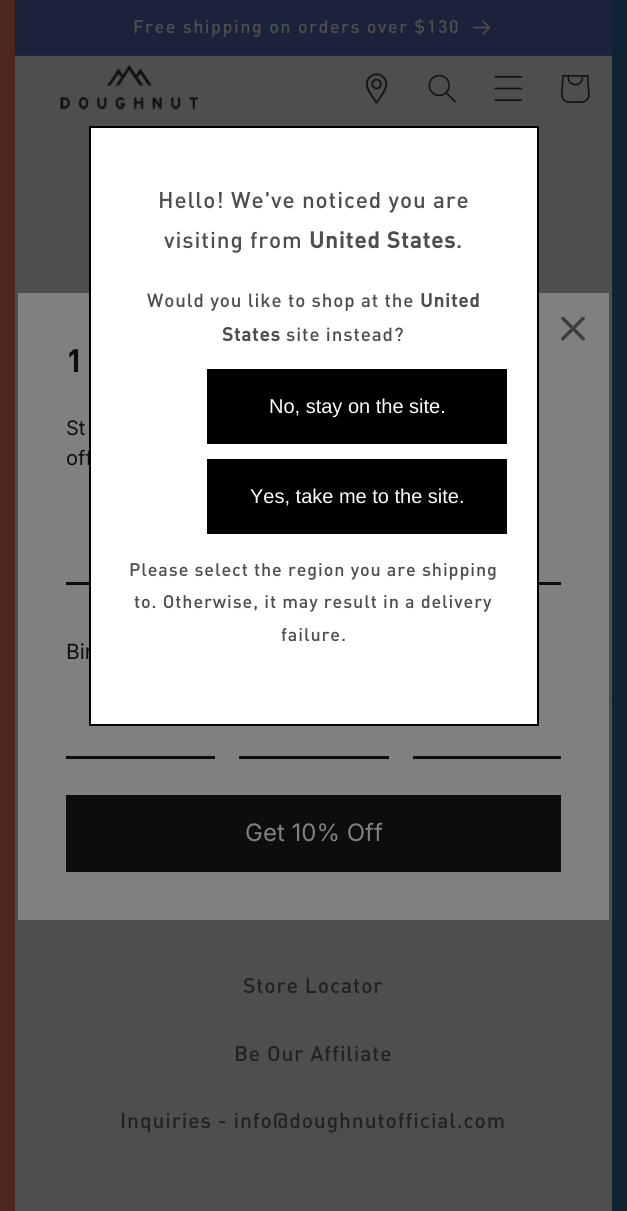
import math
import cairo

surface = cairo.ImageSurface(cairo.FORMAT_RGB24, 627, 1211)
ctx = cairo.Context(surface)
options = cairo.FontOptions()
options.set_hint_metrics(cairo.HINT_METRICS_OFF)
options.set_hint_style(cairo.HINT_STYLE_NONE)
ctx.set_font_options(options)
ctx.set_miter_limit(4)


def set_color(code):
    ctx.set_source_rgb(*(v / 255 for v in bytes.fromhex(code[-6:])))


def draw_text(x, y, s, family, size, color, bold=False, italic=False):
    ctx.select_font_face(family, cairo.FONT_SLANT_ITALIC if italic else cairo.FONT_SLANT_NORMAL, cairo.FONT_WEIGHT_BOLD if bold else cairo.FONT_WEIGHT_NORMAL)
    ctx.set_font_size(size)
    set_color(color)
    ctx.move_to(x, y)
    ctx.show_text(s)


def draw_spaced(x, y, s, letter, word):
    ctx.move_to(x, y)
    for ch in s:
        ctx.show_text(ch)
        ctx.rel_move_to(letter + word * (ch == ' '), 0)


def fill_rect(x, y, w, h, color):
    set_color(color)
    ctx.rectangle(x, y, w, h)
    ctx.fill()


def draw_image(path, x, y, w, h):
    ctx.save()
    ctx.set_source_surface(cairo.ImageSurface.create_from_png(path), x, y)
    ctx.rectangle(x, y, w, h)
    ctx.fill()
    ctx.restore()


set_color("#4e4e4e")
ctx.paint()
fill_rect(612, 0, 15, 1211, "#0f2333")
fill_rect(0, 0, 15, 1211, "#4e261e")
fill_rect(15, 0, 597, 54, "#1b223b")
fill_rect(15, 54, 597, 2, "#1f263d")
ctx.select_font_face("DIN Medium")
ctx.set_font_size(18)
set_color("#4e4e4e")
draw_spaced(133, 33, "Free shipping on orders over $130", 1.5, 0)
draw_image("assets/img1.png", 473, 20, 18, 15)
draw_image("assets/img2.png", 60, 64, 138, 46)
draw_image("assets/img3.png", 365, 73, 23, 31)
draw_image("assets/img4.png", 428, 74, 28, 29)
draw_image("assets/img5.png", 494, 76, 29, 25)
draw_image("assets/img6.png", 561, 75, 29, 28)
fill_rect(18, 293, 591, 627, "#808080")
draw_text(66, 465, "off", "Inter", 20, "#0b0e0b")
fill_rect(66, 582, 495, 3, "#0b0e0b")
draw_text(66, 659, "Bir", "Inter", 21, "#0b0e0b")
set_color("#ffffff")
ctx.rectangle(90, 127, 448, 598)
ctx.fill_preserve()
set_color("#000000")
ctx.stroke()
ctx.select_font_face("DIN Medium")
ctx.set_font_size(22.5)
set_color("#4e4e4e")
draw_spaced(158, 208, "Hello! We've noticed you are", 0.9, 0)
draw_spaced(164, 248, "visiting from", 0.9, 0)
ctx.select_font_face("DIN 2", cairo.FONT_SLANT_NORMAL, cairo.FONT_WEIGHT_BOLD)
draw_spaced(309, 248, "United States", 0.9, 0)
ctx.select_font_face("DIN Medium")
draw_spaced(456, 248, ".", 0.9, 0)
ctx.set_font_size(18.75)
draw_spaced(147, 307, "Would you like to shop at the", 0.9, 0)
ctx.select_font_face("DIN 2", cairo.FONT_SLANT_NORMAL, cairo.FONT_WEIGHT_BOLD)
draw_spaced(420, 307, "United", 0.9, 0)
draw_spaced(222, 341, "States", 0.9, 0)
ctx.select_font_face("DIN Medium")
draw_spaced(286, 341, "site instead?", 0.9, 0)
fill_rect(207, 369, 300, 75, "#000000")
draw_text(269, 413, "No, stay on the site.", "Liberation Sans", 20, "#ffffff")
fill_rect(207, 459, 300, 75, "#000000")
draw_text(250, 503, "Yes, take me to the site.", "Liberation Sans", 20, "#ffffff")
ctx.select_font_face("DIN Medium")
ctx.set_font_size(18)
set_color("#4e4e4e")
draw_spaced(129, 576, "Please select the region you are shipping", 0.9, 0)
draw_spaced(134, 608, "to. Otherwise, it may result in a delivery", 0.9, 0)
draw_spaced(281, 641, "failure.", 0.9, 0)
draw_image("assets/img7.png", 561, 317, 24, 24)
ctx.select_font_face("DIN", cairo.FONT_SLANT_NORMAL, cairo.FONT_WEIGHT_BOLD)
ctx.set_font_size(32)
set_color("#0b0e0b")
draw_spaced(66, 372, "1", 4, 0)
draw_text(66, 435, "St", "Inter", 20, "#0b0e0b")
fill_rect(66, 756, 149, 3, "#0b0e0b")
fill_rect(239, 756, 150, 3, "#0b0e0b")
fill_rect(413, 756, 148, 3, "#0b0e0b")
fill_rect(66, 795, 495, 77, "#0b0e0b")
draw_text(245, 841, "Get 10% Off", "Inter", 24, "#808080")
fill_rect(15, 701, 3, 2, "#424242")
fill_rect(609, 701, 3, 2, "#424242")
ctx.select_font_face("DIN Medium")
ctx.set_font_size(21)
set_color("#222222")
draw_spaced(243, 993, "Store Locator", 0.9, 0)
draw_spaced(234, 1061, "Be Our Affiliate", 0.9, 0)
draw_spaced(120, 1128, "Inquiries - info@doughnutofficial.com", 0.9, 0)
surface.write_to_png("output.png")
